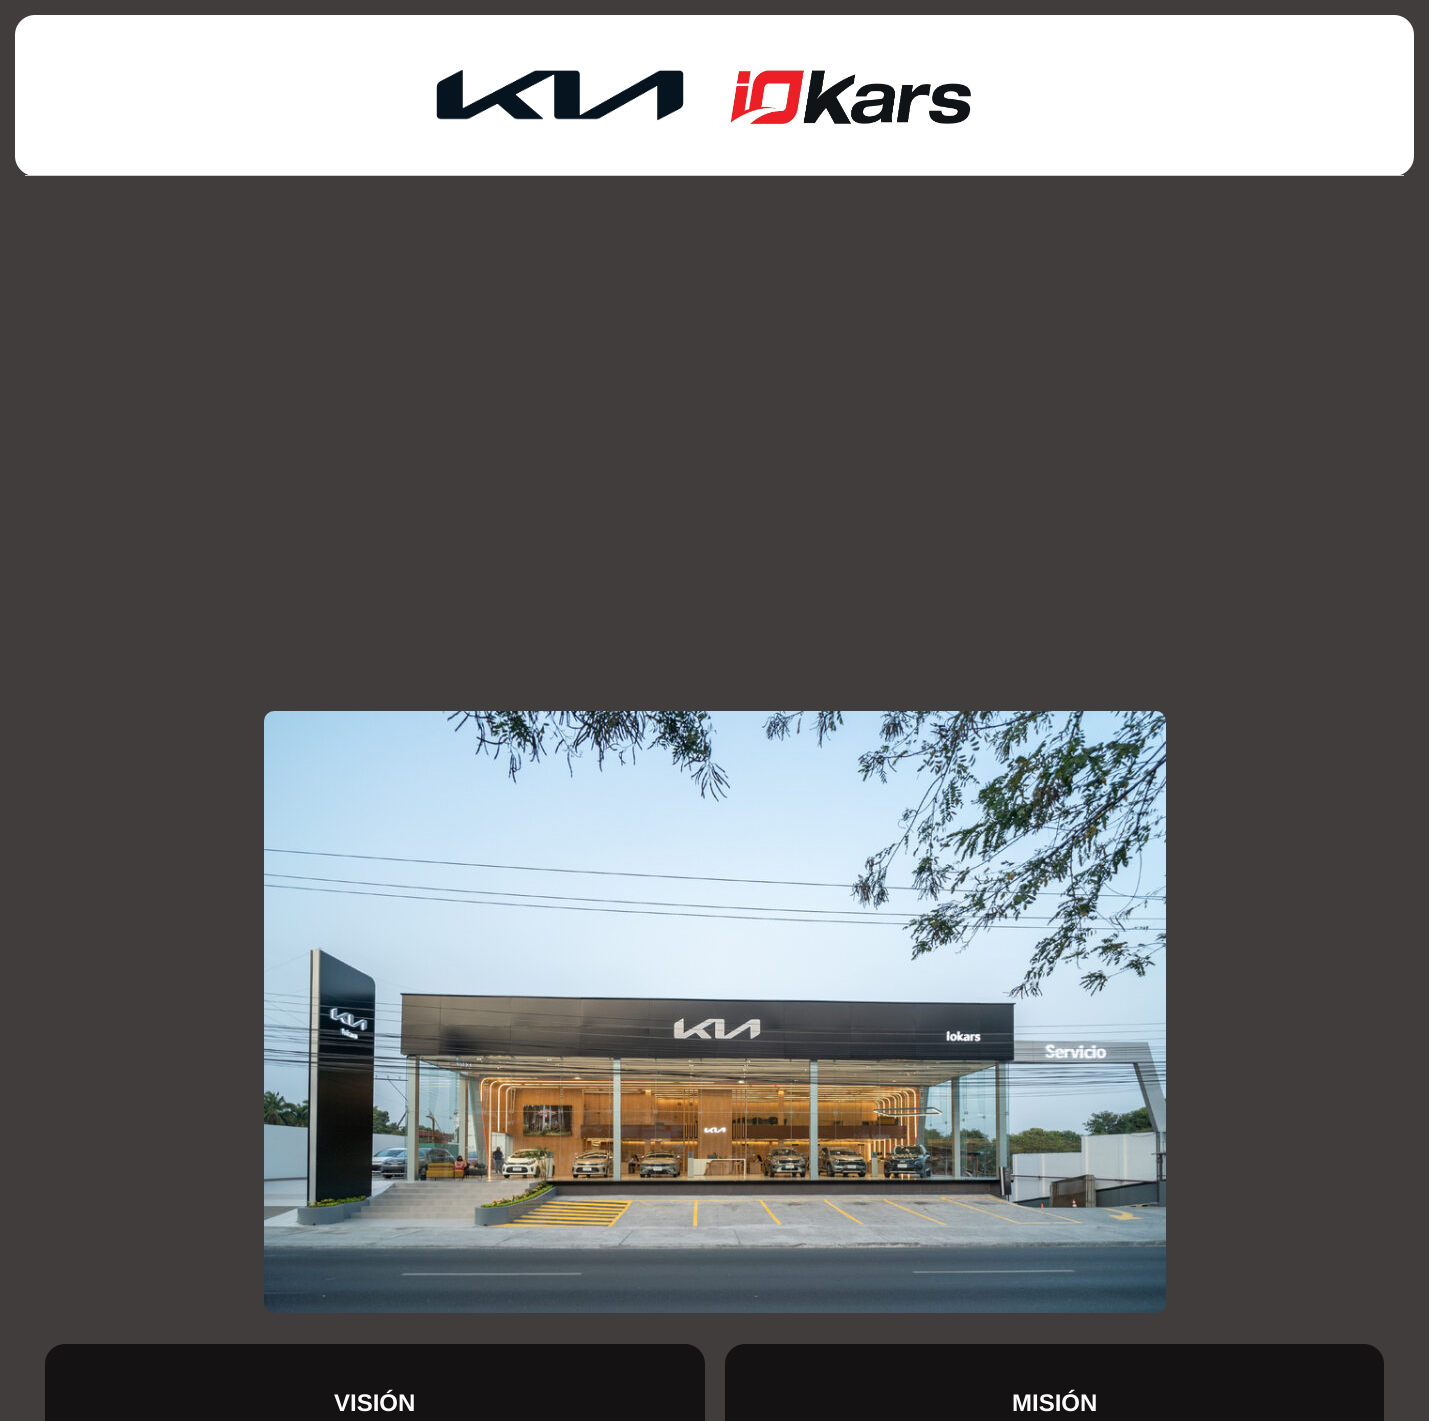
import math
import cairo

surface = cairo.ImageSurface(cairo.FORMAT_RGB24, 1429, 1421)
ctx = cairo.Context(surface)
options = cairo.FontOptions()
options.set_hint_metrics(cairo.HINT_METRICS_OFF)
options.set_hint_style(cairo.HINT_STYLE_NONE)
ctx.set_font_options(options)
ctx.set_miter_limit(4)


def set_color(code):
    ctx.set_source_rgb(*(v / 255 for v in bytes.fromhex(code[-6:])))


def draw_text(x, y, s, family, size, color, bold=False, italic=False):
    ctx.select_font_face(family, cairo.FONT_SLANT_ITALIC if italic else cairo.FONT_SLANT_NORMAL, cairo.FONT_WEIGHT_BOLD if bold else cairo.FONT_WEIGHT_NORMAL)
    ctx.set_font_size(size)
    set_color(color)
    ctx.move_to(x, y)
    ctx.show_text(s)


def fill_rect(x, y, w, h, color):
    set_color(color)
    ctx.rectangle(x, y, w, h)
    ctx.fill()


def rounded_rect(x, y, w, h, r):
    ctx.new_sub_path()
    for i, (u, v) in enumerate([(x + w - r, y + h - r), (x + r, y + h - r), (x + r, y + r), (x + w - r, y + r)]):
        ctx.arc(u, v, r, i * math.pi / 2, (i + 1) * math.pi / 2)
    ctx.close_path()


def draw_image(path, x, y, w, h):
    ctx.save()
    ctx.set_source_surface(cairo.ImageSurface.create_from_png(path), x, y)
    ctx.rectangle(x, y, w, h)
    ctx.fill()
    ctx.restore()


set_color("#413d3d")
ctx.paint()
set_color("#ffffff")
rounded_rect(15, 15, 1399, 161, 20)
ctx.fill()
fill_rect(25, 175, 1379, 1, "#cccccc")
draw_image("assets/img1.png", 436, 70, 248, 51)
draw_image("assets/img2.png", 730, 70, 241, 55)
draw_image("assets/img3.png", 264, 711, 902, 602)
set_color("#141212")
rounded_rect(45, 1344, 660, 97, 20)
ctx.fill()
draw_text(334, 1411, "VISIÓN", "Liberation Sans", 24, "#ffffff", bold=True)
set_color("#141212")
rounded_rect(725, 1344, 659, 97, 20)
ctx.fill()
draw_text(1012, 1411, "MISIÓN", "Liberation Sans", 24, "#ffffff", bold=True)
surface.write_to_png("output.png")
